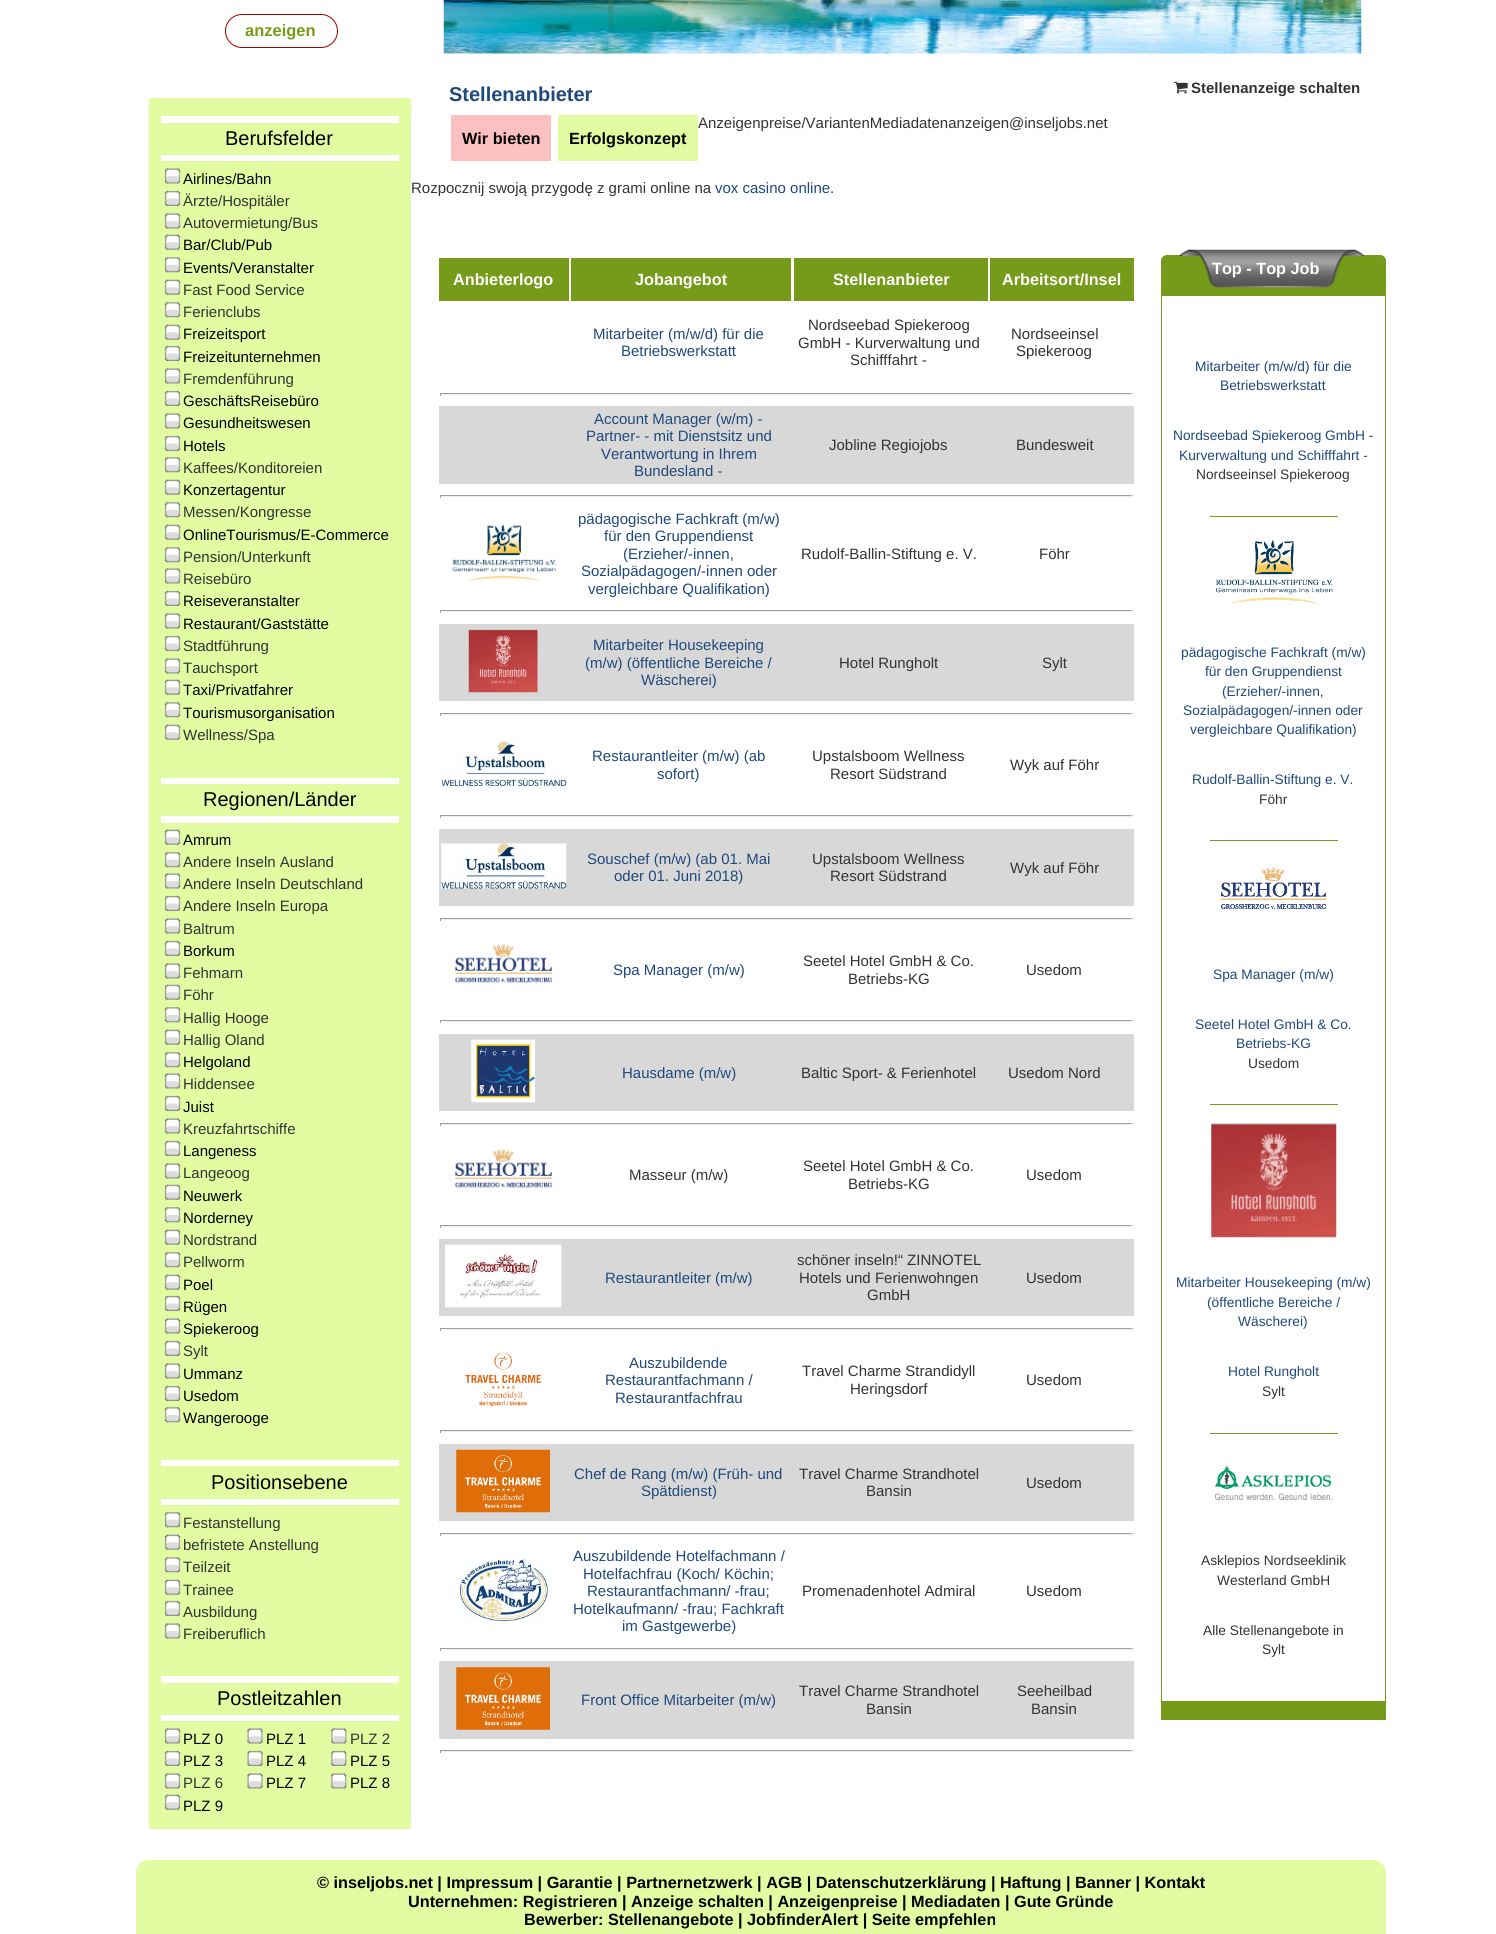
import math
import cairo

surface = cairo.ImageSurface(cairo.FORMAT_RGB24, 1496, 1934)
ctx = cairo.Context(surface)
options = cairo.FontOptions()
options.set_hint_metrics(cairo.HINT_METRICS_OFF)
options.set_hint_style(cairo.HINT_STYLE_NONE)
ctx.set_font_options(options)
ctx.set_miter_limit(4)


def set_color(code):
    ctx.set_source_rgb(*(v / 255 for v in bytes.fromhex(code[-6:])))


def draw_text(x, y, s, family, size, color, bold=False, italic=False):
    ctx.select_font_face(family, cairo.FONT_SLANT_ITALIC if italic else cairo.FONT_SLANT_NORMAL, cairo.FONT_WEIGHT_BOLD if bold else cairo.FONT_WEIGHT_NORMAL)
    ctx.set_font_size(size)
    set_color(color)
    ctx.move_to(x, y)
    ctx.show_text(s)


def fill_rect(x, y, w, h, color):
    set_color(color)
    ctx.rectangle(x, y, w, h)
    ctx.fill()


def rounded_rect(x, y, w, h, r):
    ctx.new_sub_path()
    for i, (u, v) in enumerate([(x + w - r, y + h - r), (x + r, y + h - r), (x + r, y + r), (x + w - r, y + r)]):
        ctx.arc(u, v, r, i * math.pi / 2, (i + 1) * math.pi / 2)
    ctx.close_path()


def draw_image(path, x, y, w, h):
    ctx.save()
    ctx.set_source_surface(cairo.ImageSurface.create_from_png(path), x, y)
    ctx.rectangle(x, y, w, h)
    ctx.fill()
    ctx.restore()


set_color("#ffffff")
ctx.paint()
rounded_rect(225.5, 14.5, 112, 33, 16.5)
set_color("#990000")
ctx.set_line_width(1)
ctx.stroke()
draw_text(245, 36, "anzeigen", "Liberation Sans", 16.5, "#769a19", bold=True)
draw_image("assets/img1.png", 443, 0, 919, 54)
draw_text(449, 101, "Stellenanbieter", "Liberation Sans", 20, "#1f497d", bold=True)
draw_image("assets/img2.png", 1173, 81, 15, 13)
draw_text(1191, 93, "Stellenanzeige schalten", "Liberation Sans", 15, "#333333", bold=True)
fill_rect(558, 115, 140, 46, "#e2fca1")
draw_text(698, 128, "Anzeigenpreise/VariantenMediadatenanzeigen@inseljobs.net", "Liberation Sans", 15, "#333333")
fill_rect(451, 115, 100, 46, "#fdc0c0")
draw_text(462, 144, "Wir bieten", "Liberation Sans", 16.25, "#000000", bold=True)
draw_text(569, 144, "Erfolgskonzept", "Liberation Sans", 16.25, "#000000", bold=True)
fill_rect(149, 98, 262, 1731, "#e2fca1")
fill_rect(161, 116, 238, 7, "#ffffff")
fill_rect(161, 155, 238, 6, "#ffffff")
draw_text(225, 145, "Berufsfelder", "Liberation Sans", 20, "#000000")
draw_image("assets/img3.png", 164, 168, 17, 16)
draw_text(183, 184, "Airlines/Bahn", "Liberation Sans", 15, "#000000")
draw_image("assets/img4.png", 164, 190, 17, 16)
draw_text(183, 206, "Ärzte/Hospitäler", "Liberation Sans", 15, "#333333")
draw_image("assets/img3.png", 164, 213, 17, 16)
draw_text(183, 228, "Autovermietung/Bus", "Liberation Sans", 15, "#333333")
draw_image("assets/img5.png", 164, 234, 17, 16)
draw_text(183, 250, "Bar/Club/Pub", "Liberation Sans", 15, "#000000")
draw_image("assets/img6.png", 164, 257, 17, 16)
draw_text(183, 273, "Events/Veranstalter", "Liberation Sans", 15, "#000000")
draw_image("assets/img5.png", 164, 279, 17, 16)
draw_text(183, 295, "Fast Food Service", "Liberation Sans", 15, "#333333")
draw_image("assets/img7.png", 164, 302, 17, 16)
draw_text(183, 317, "Ferienclubs", "Liberation Sans", 15, "#333333")
draw_image("assets/img5.png", 164, 324, 17, 16)
draw_text(183, 339, "Freizeitsport", "Liberation Sans", 15, "#000000")
draw_image("assets/img4.png", 164, 345, 17, 16)
draw_text(183, 362, "Freizeitunternehmen", "Liberation Sans", 15, "#000000")
draw_image("assets/img3.png", 164, 368, 17, 16)
draw_text(183, 384, "Fremdenführung", "Liberation Sans", 15, "#333333")
draw_image("assets/img4.png", 164, 390, 17, 16)
draw_text(183, 406, "GeschäftsReisebüro", "Liberation Sans", 15, "#000000")
draw_image("assets/img3.png", 164, 413, 17, 16)
draw_text(183, 428, "Gesundheitswesen", "Liberation Sans", 15, "#000000")
draw_image("assets/img4.png", 164, 435, 17, 16)
draw_text(183, 451, "Hotels", "Liberation Sans", 15, "#000000")
draw_image("assets/img6.png", 164, 457, 17, 16)
draw_text(183, 473, "Kaffees/Konditoreien", "Liberation Sans", 15, "#333333")
draw_image("assets/img5.png", 164, 479, 17, 16)
draw_text(183, 495, "Konzertagentur", "Liberation Sans", 15, "#000000")
draw_image("assets/img6.png", 164, 502, 17, 16)
draw_text(183, 517, "Messen/Kongresse", "Liberation Sans", 15, "#333333")
draw_image("assets/img5.png", 164, 524, 17, 16)
draw_text(183, 540, "OnlineTourismus/E-Commerce", "Liberation Sans", 15, "#000000")
draw_image("assets/img6.png", 164, 547, 17, 16)
draw_text(183, 562, "Pension/Unterkunft", "Liberation Sans", 15, "#333333")
draw_image("assets/img3.png", 164, 568, 17, 16)
draw_text(183, 584, "Reisebüro", "Liberation Sans", 15, "#333333")
draw_image("assets/img4.png", 164, 590, 17, 16)
draw_text(183, 606, "Reiseveranstalter", "Liberation Sans", 15, "#000000")
draw_image("assets/img3.png", 164, 613, 17, 16)
draw_text(183, 629, "Restaurant/Gaststätte", "Liberation Sans", 15, "#000000")
draw_image("assets/img4.png", 164, 635, 17, 16)
draw_text(183, 651, "Stadtführung", "Liberation Sans", 15, "#333333")
draw_image("assets/img3.png", 164, 658, 17, 16)
draw_text(183, 673, "Tauchsport", "Liberation Sans", 15, "#333333")
draw_image("assets/img5.png", 164, 679, 17, 16)
draw_text(183, 695, "Taxi/Privatfahrer", "Liberation Sans", 15, "#000000")
draw_image("assets/img8.png", 164, 702, 17, 16)
draw_text(183, 718, "Tourismusorganisation", "Liberation Sans", 15, "#000000")
draw_image("assets/img5.png", 164, 724, 17, 16)
draw_text(183, 740, "Wellness/Spa", "Liberation Sans", 15, "#333333")
fill_rect(161, 778, 238, 6, "#ffffff")
fill_rect(161, 816, 238, 7, "#ffffff")
draw_text(203, 806, "Regionen/Länder", "Liberation Sans", 20, "#000000")
draw_image("assets/img5.png", 164, 829, 17, 16)
draw_text(183, 845, "Amrum", "Liberation Sans", 15, "#000000")
draw_image("assets/img6.png", 164, 852, 17, 16)
draw_text(183, 867, "Andere Inseln Ausland", "Liberation Sans", 15, "#333333")
draw_image("assets/img3.png", 164, 873, 17, 16)
draw_text(183, 889, "Andere Inseln Deutschland", "Liberation Sans", 15, "#333333")
draw_image("assets/img4.png", 164, 895, 17, 16)
draw_text(183, 911, "Andere Inseln Europa", "Liberation Sans", 15, "#333333")
draw_image("assets/img3.png", 164, 918, 17, 16)
draw_text(183, 934, "Baltrum", "Liberation Sans", 15, "#333333")
draw_image("assets/img4.png", 164, 940, 17, 16)
draw_text(183, 956, "Borkum", "Liberation Sans", 15, "#000000")
draw_image("assets/img3.png", 164, 963, 17, 16)
draw_text(183, 978, "Fehmarn", "Liberation Sans", 15, "#333333")
draw_image("assets/img5.png", 164, 984, 17, 16)
draw_text(183, 1000, "Föhr", "Liberation Sans", 15, "#333333")
draw_image("assets/img6.png", 164, 1007, 17, 16)
draw_text(183, 1023, "Hallig Hooge", "Liberation Sans", 15, "#333333")
draw_image("assets/img5.png", 164, 1029, 17, 16)
draw_text(183, 1045, "Hallig Oland", "Liberation Sans", 15, "#333333")
draw_image("assets/img6.png", 164, 1052, 17, 16)
draw_text(183, 1067, "Helgoland", "Liberation Sans", 15, "#000000")
draw_image("assets/img3.png", 164, 1073, 17, 16)
draw_text(183, 1089, "Hiddensee", "Liberation Sans", 15, "#333333")
draw_image("assets/img4.png", 164, 1095, 17, 16)
draw_text(183, 1112, "Juist", "Liberation Sans", 15, "#000000")
draw_image("assets/img3.png", 164, 1118, 17, 16)
draw_text(183, 1134, "Kreuzfahrtschiffe", "Liberation Sans", 15, "#333333")
draw_image("assets/img4.png", 164, 1140, 17, 16)
draw_text(183, 1156, "Langeness", "Liberation Sans", 15, "#000000")
draw_image("assets/img3.png", 164, 1163, 17, 16)
draw_text(183, 1178, "Langeoog", "Liberation Sans", 15, "#333333")
draw_image("assets/img5.png", 164, 1184, 17, 16)
draw_text(183, 1201, "Neuwerk", "Liberation Sans", 15, "#000000")
draw_image("assets/img6.png", 164, 1207, 17, 16)
draw_text(183, 1223, "Norderney", "Liberation Sans", 15, "#000000")
draw_image("assets/img5.png", 164, 1229, 17, 16)
draw_text(183, 1245, "Nordstrand", "Liberation Sans", 15, "#333333")
draw_image("assets/img6.png", 164, 1252, 17, 16)
draw_text(183, 1267, "Pellworm", "Liberation Sans", 15, "#333333")
draw_image("assets/img5.png", 164, 1274, 17, 16)
draw_text(183, 1290, "Poel", "Liberation Sans", 15, "#000000")
draw_image("assets/img4.png", 164, 1295, 17, 16)
draw_text(183, 1312, "Rügen", "Liberation Sans", 15, "#000000")
draw_image("assets/img3.png", 164, 1318, 17, 16)
draw_text(183, 1334, "Spiekeroog", "Liberation Sans", 15, "#000000")
draw_image("assets/img4.png", 164, 1340, 17, 16)
draw_text(183, 1356, "Sylt", "Liberation Sans", 15, "#333333")
draw_image("assets/img3.png", 164, 1363, 17, 16)
draw_text(183, 1379, "Ummanz", "Liberation Sans", 15, "#000000")
draw_image("assets/img4.png", 164, 1385, 17, 16)
draw_text(183, 1401, "Usedom", "Liberation Sans", 15, "#000000")
draw_image("assets/img6.png", 164, 1407, 17, 16)
draw_text(183, 1423, "Wangerooge", "Liberation Sans", 15, "#000000")
fill_rect(161, 1460, 238, 6, "#ffffff")
fill_rect(161, 1499, 238, 6, "#ffffff")
draw_text(211, 1489, "Positionsebene", "Liberation Sans", 20, "#000000")
draw_image("assets/img6.png", 164, 1512, 17, 16)
draw_text(183, 1528, "Festanstellung", "Liberation Sans", 15, "#333333")
draw_image("assets/img5.png", 164, 1534, 17, 16)
draw_text(183, 1550, "befristete Anstellung", "Liberation Sans", 15, "#333333")
draw_image("assets/img6.png", 164, 1557, 17, 16)
draw_text(183, 1572, "Teilzeit", "Liberation Sans", 15, "#333333")
draw_image("assets/img5.png", 164, 1579, 17, 16)
draw_text(183, 1595, "Trainee", "Liberation Sans", 15, "#333333")
draw_image("assets/img4.png", 164, 1600, 17, 16)
draw_text(183, 1617, "Ausbildung", "Liberation Sans", 15, "#333333")
draw_image("assets/img3.png", 164, 1623, 17, 16)
draw_text(183, 1639, "Freiberuflich", "Liberation Sans", 15, "#333333")
fill_rect(161, 1676, 238, 7, "#ffffff")
fill_rect(161, 1715, 238, 6, "#ffffff")
draw_text(217, 1705, "Postleitzahlen", "Liberation Sans", 20, "#000000")
draw_image("assets/img3.png", 164, 1728, 17, 16)
draw_text(183, 1744, "PLZ 0", "Liberation Sans", 15, "#000000")
draw_image("assets/img9.png", 247, 1728, 16, 16)
draw_text(266, 1744, "PLZ 1", "Liberation Sans", 15, "#000000")
draw_image("assets/img10.png", 331, 1728, 16, 16)
draw_text(350, 1744, "PLZ 2", "Liberation Sans", 15, "#333333")
draw_image("assets/img4.png", 164, 1750, 17, 16)
draw_text(183, 1766, "PLZ 3", "Liberation Sans", 15, "#000000")
draw_image("assets/img11.png", 247, 1750, 16, 16)
draw_text(266, 1766, "PLZ 4", "Liberation Sans", 15, "#000000")
draw_image("assets/img12.png", 331, 1750, 16, 16)
draw_text(350, 1766, "PLZ 5", "Liberation Sans", 15, "#000000")
draw_image("assets/img3.png", 164, 1773, 17, 16)
draw_text(183, 1788, "PLZ 6", "Liberation Sans", 15, "#333333")
draw_image("assets/img9.png", 247, 1773, 16, 16)
draw_text(266, 1788, "PLZ 7", "Liberation Sans", 15, "#000000")
draw_image("assets/img10.png", 331, 1773, 16, 16)
draw_text(350, 1788, "PLZ 8", "Liberation Sans", 15, "#000000")
draw_image("assets/img5.png", 164, 1794, 17, 16)
draw_text(183, 1811, "PLZ 9", "Liberation Sans", 15, "#000000")
draw_text(411, 193, "Rozpocznij swoją przygodę z grami online na", "Liberation Sans", 15, "#333333")
draw_text(715, 193, "vox casino online", "Liberation Sans", 15, "#1f497d")
draw_text(830, 193, ".", "Liberation Sans", 15, "#333333")
fill_rect(439, 258, 130, 43, "#769a19")
draw_text(453, 285, "Anbieterlogo", "Liberation Sans", 16.25, "#ffffff", bold=True)
fill_rect(571, 258, 220, 43, "#769a19")
draw_text(635, 285, "Jobangebot", "Liberation Sans", 16.25, "#ffffff", bold=True)
fill_rect(794, 258, 194, 43, "#769a19")
draw_text(833, 285, "Stellenanbieter", "Liberation Sans", 16.25, "#ffffff", bold=True)
fill_rect(990, 258, 144, 43, "#769a19")
draw_text(1002, 285, "Arbeitsort/Insel", "Liberation Sans", 16.25, "#ffffff", bold=True)
draw_text(593, 339, "Mitarbeiter (m/w/d) für die", "Liberation Sans", 15, "#1f497d")
draw_text(621, 356, "Betriebswerkstatt", "Liberation Sans", 15, "#1f497d")
draw_text(808, 330, "Nordseebad Spiekeroog", "Liberation Sans", 15, "#333333")
draw_text(798, 348, "GmbH - Kurverwaltung und", "Liberation Sans", 15, "#333333")
draw_text(850, 365, "Schifffahrt -", "Liberation Sans", 15, "#333333")
draw_text(1011, 339, "Nordseeinsel", "Liberation Sans", 15, "#333333")
draw_text(1016, 356, "Spiekeroog", "Liberation Sans", 15, "#333333")
fill_rect(440, 393, 693, 1, "#9f9f9f")
fill_rect(1131, 393, 1, 3, "#eeeeee")
fill_rect(440, 394, 693, 1, "#eeeeee")
fill_rect(440, 393, 1, 3, "#9f9f9f")
fill_rect(439, 406, 695, 78, "#d8d8d8")
draw_text(594, 424, "Account Manager (w/m) -", "Liberation Sans", 15, "#1f497d")
draw_text(586, 441, "Partner- - mit Dienstsitz und", "Liberation Sans", 15, "#1f497d")
draw_text(601, 459, "Verantwortung in Ihrem", "Liberation Sans", 15, "#1f497d")
draw_text(634, 476, "Bundesland -", "Liberation Sans", 15, "#1f497d")
draw_text(829, 450, "Jobline Regiojobs", "Liberation Sans", 15, "#333333")
draw_text(1016, 450, "Bundesweit", "Liberation Sans", 15, "#333333")
fill_rect(440, 495, 693, 1, "#9f9f9f")
fill_rect(1131, 495, 1, 3, "#eeeeee")
fill_rect(440, 496, 693, 1, "#eeeeee")
fill_rect(440, 495, 1, 3, "#9f9f9f")
draw_image("assets/img13.png", 452, 524, 104, 58)
draw_text(578, 524, "pädagogische Fachkraft (m/w)", "Liberation Sans", 15, "#1f497d")
draw_text(604, 541, "für den Gruppendienst", "Liberation Sans", 15, "#1f497d")
draw_text(623, 559, "(Erzieher/-innen,", "Liberation Sans", 15, "#1f497d")
draw_text(581, 576, "Sozialpädagogen/-innen oder", "Liberation Sans", 15, "#1f497d")
draw_text(588, 594, "vergleichbare Qualifikation)", "Liberation Sans", 15, "#1f497d")
draw_text(801, 559, "Rudolf-Ballin-Stiftung e. V.", "Liberation Sans", 15, "#333333")
draw_text(1039, 559, "Föhr", "Liberation Sans", 15, "#333333")
fill_rect(440, 610, 693, 1, "#9f9f9f")
fill_rect(1131, 610, 1, 3, "#eeeeee")
fill_rect(440, 611, 693, 1, "#eeeeee")
fill_rect(440, 610, 1, 3, "#9f9f9f")
fill_rect(439, 624, 695, 77, "#d8d8d8")
draw_image("assets/img14.png", 468, 629, 70, 64)
draw_text(593, 650, "Mitarbeiter Housekeeping", "Liberation Sans", 15, "#1f497d")
draw_text(585, 668, "(m/w) (öffentliche Bereiche /", "Liberation Sans", 15, "#1f497d")
draw_text(641, 685, "Wäscherei)", "Liberation Sans", 15, "#1f497d")
draw_text(839, 668, "Hotel Rungholt", "Liberation Sans", 15, "#333333")
draw_text(1042, 668, "Sylt", "Liberation Sans", 15, "#333333")
fill_rect(440, 713, 693, 1, "#9f9f9f")
fill_rect(1131, 713, 1, 3, "#eeeeee")
fill_rect(440, 714, 693, 1, "#eeeeee")
fill_rect(440, 713, 1, 3, "#9f9f9f")
draw_image("assets/img15.png", 441, 741, 126, 45)
draw_text(592, 761, "Restaurantleiter (m/w) (ab", "Liberation Sans", 15, "#1f497d")
draw_text(657, 779, "sofort)", "Liberation Sans", 15, "#1f497d")
draw_text(812, 761, "Upstalsboom Wellness", "Liberation Sans", 15, "#333333")
draw_text(830, 779, "Resort Südstrand", "Liberation Sans", 15, "#333333")
draw_text(1010, 770, "Wyk auf Föhr", "Liberation Sans", 15, "#333333")
fill_rect(440, 815, 693, 1, "#9f9f9f")
fill_rect(1131, 815, 1, 3, "#eeeeee")
fill_rect(440, 816, 693, 1, "#eeeeee")
fill_rect(440, 815, 1, 3, "#9f9f9f")
fill_rect(439, 829, 695, 77, "#d8d8d8")
draw_image("assets/img16.png", 441, 843, 126, 46)
draw_text(587, 864, "Souschef (m/w) (ab 01. Mai", "Liberation Sans", 15, "#1f497d")
draw_text(614, 881, "oder 01. Juni 2018)", "Liberation Sans", 15, "#1f497d")
draw_text(812, 864, "Upstalsboom Wellness", "Liberation Sans", 15, "#333333")
draw_text(830, 881, "Resort Südstrand", "Liberation Sans", 15, "#333333")
draw_text(1010, 873, "Wyk auf Föhr", "Liberation Sans", 15, "#333333")
fill_rect(440, 918, 693, 1, "#9f9f9f")
fill_rect(1131, 918, 1, 3, "#eeeeee")
fill_rect(440, 919, 693, 1, "#eeeeee")
fill_rect(440, 918, 1, 3, "#9f9f9f")
draw_image("assets/img17.png", 454, 944, 99, 39)
draw_text(613, 975, "Spa Manager (m/w)", "Liberation Sans", 15, "#1f497d")
draw_text(803, 966, "Seetel Hotel GmbH & Co.", "Liberation Sans", 15, "#333333")
draw_text(848, 984, "Betriebs-KG", "Liberation Sans", 15, "#333333")
draw_text(1026, 975, "Usedom", "Liberation Sans", 15, "#333333")
fill_rect(440, 1020, 693, 1, "#9f9f9f")
fill_rect(1131, 1020, 1, 3, "#eeeeee")
fill_rect(440, 1021, 693, 1, "#eeeeee")
fill_rect(440, 1020, 1, 3, "#9f9f9f")
fill_rect(439, 1034, 695, 77, "#d8d8d8")
draw_image("assets/img18.png", 471, 1039, 64, 64)
draw_text(622, 1078, "Hausdame (m/w)", "Liberation Sans", 15, "#1f497d")
draw_text(801, 1078, "Baltic Sport- & Ferienhotel", "Liberation Sans", 15, "#333333")
draw_text(1008, 1078, "Usedom Nord", "Liberation Sans", 15, "#333333")
fill_rect(440, 1123, 693, 1, "#9f9f9f")
fill_rect(1131, 1123, 1, 3, "#eeeeee")
fill_rect(440, 1124, 693, 1, "#eeeeee")
fill_rect(440, 1123, 1, 3, "#9f9f9f")
draw_image("assets/img17.png", 454, 1149, 99, 39)
draw_text(629, 1180, "Masseur (m/w)", "Liberation Sans", 15, "#333333")
draw_text(803, 1171, "Seetel Hotel GmbH & Co.", "Liberation Sans", 15, "#333333")
draw_text(848, 1189, "Betriebs-KG", "Liberation Sans", 15, "#333333")
draw_text(1026, 1180, "Usedom", "Liberation Sans", 15, "#333333")
fill_rect(440, 1225, 693, 1, "#9f9f9f")
fill_rect(1131, 1225, 1, 3, "#eeeeee")
fill_rect(440, 1226, 693, 1, "#eeeeee")
fill_rect(440, 1225, 1, 3, "#9f9f9f")
fill_rect(439, 1239, 695, 77, "#d8d8d8")
draw_image("assets/img19.png", 445, 1244, 117, 64)
draw_text(605, 1283, "Restaurantleiter (m/w)", "Liberation Sans", 15, "#1f497d")
draw_text(797, 1265, "schöner inseln!“ ZINNOTEL", "Liberation Sans", 15, "#333333")
draw_text(799, 1283, "Hotels und Ferienwohngen", "Liberation Sans", 15, "#333333")
draw_text(867, 1300, "GmbH", "Liberation Sans", 15, "#333333")
draw_text(1026, 1283, "Usedom", "Liberation Sans", 15, "#333333")
fill_rect(440, 1328, 693, 1, "#9f9f9f")
fill_rect(1131, 1328, 1, 3, "#eeeeee")
fill_rect(440, 1329, 693, 1, "#eeeeee")
fill_rect(440, 1328, 1, 3, "#9f9f9f")
draw_image("assets/img20.png", 465, 1352, 77, 55)
draw_text(629, 1368, "Auszubildende", "Liberation Sans", 15, "#1f497d")
draw_text(605, 1385, "Restaurantfachmann /", "Liberation Sans", 15, "#1f497d")
draw_text(615, 1403, "Restaurantfachfrau", "Liberation Sans", 15, "#1f497d")
draw_text(802, 1376, "Travel Charme Strandidyll", "Liberation Sans", 15, "#333333")
draw_text(850, 1394, "Heringsdorf", "Liberation Sans", 15, "#333333")
draw_text(1026, 1385, "Usedom", "Liberation Sans", 15, "#333333")
fill_rect(440, 1430, 693, 1, "#9f9f9f")
fill_rect(1131, 1430, 1, 3, "#eeeeee")
fill_rect(440, 1431, 693, 1, "#eeeeee")
fill_rect(440, 1430, 1, 3, "#9f9f9f")
fill_rect(439, 1444, 695, 77, "#d8d8d8")
draw_image("assets/img21.png", 456, 1449, 94, 64)
draw_text(574, 1479, "Chef de Rang (m/w) (Früh- und", "Liberation Sans", 15, "#1f497d")
draw_text(641, 1496, "Spätdienst)", "Liberation Sans", 15, "#1f497d")
draw_text(799, 1479, "Travel Charme Strandhotel", "Liberation Sans", 15, "#333333")
draw_text(866, 1496, "Bansin", "Liberation Sans", 15, "#333333")
draw_text(1026, 1488, "Usedom", "Liberation Sans", 15, "#333333")
fill_rect(440, 1533, 693, 1, "#9f9f9f")
fill_rect(1131, 1533, 1, 3, "#eeeeee")
fill_rect(440, 1534, 693, 1, "#eeeeee")
fill_rect(440, 1533, 1, 3, "#9f9f9f")
draw_image("assets/img22.png", 460, 1558, 88, 63)
draw_text(573, 1561, "Auszubildende Hotelfachmann /", "Liberation Sans", 15, "#1f497d")
draw_text(583, 1579, "Hotelfachfrau (Koch/ Köchin;", "Liberation Sans", 15, "#1f497d")
draw_text(587, 1596, "Restaurantfachmann/ -frau;", "Liberation Sans", 15, "#1f497d")
draw_text(573, 1614, "Hotelkaufmann/ -frau; Fachkraft", "Liberation Sans", 15, "#1f497d")
draw_text(622, 1631, "im Gastgewerbe)", "Liberation Sans", 15, "#1f497d")
draw_text(802, 1596, "Promenadenhotel Admiral", "Liberation Sans", 15, "#333333")
draw_text(1026, 1596, "Usedom", "Liberation Sans", 15, "#333333")
fill_rect(440, 1648, 693, 1, "#9f9f9f")
fill_rect(1131, 1648, 1, 3, "#eeeeee")
fill_rect(440, 1649, 693, 1, "#eeeeee")
fill_rect(440, 1648, 1, 3, "#9f9f9f")
fill_rect(439, 1661, 695, 78, "#d8d8d8")
draw_image("assets/img23.png", 456, 1667, 94, 63)
draw_text(581, 1705, "Front Office Mitarbeiter (m/w)", "Liberation Sans", 15, "#1f497d")
draw_text(799, 1696, "Travel Charme Strandhotel", "Liberation Sans", 15, "#333333")
draw_text(866, 1714, "Bansin", "Liberation Sans", 15, "#333333")
draw_text(1017, 1696, "Seeheilbad", "Liberation Sans", 15, "#333333")
draw_text(1031, 1714, "Bansin", "Liberation Sans", 15, "#333333")
fill_rect(440, 1750, 693, 1, "#9f9f9f")
fill_rect(1131, 1750, 1, 3, "#eeeeee")
fill_rect(440, 1751, 693, 1, "#eeeeee")
fill_rect(440, 1750, 1, 3, "#9f9f9f")
set_color("#769a19")
ctx.new_path()
ctx.move_to(1167, 255.5)
ctx.line_to(1380, 255.5)
ctx.curve_to(1383, 255.5, 1385.5, 258, 1385.5, 261)
ctx.line_to(1385.5, 294.5)
ctx.line_to(1161.5, 294.5)
ctx.line_to(1161.5, 261)
ctx.curve_to(1161.5, 258, 1164, 255.5, 1167, 255.5)
ctx.close_path()
ctx.fill_preserve()
ctx.stroke()
draw_image("assets/img24.png", 1178, 249, 186, 39)
draw_text(1212, 274, "Top - Top Job", "Liberation Sans", 16.25, "#ffffff", bold=True)
fill_rect(1161, 295, 225, 1, "#769a19")
fill_rect(1385, 295, 1, 1406, "#769a19")
fill_rect(1162, 1701, 224, 19, "#769a19")
fill_rect(1161, 295, 1, 1425, "#769a19")
draw_text(1195, 371, "Mitarbeiter (m/w/d) für die", "Liberation Sans", 13.75, "#1f497d")
draw_text(1220, 390, "Betriebswerkstatt", "Liberation Sans", 13.75, "#1f497d")
draw_text(1173, 440, "Nordseebad Spiekeroog GmbH -", "Liberation Sans", 13.75, "#1f497d")
draw_text(1179, 460, "Kurverwaltung und Schifffahrt -", "Liberation Sans", 13.75, "#1f497d")
draw_text(1196, 479, "Nordseeinsel Spiekeroog", "Liberation Sans", 13.75, "#333333")
fill_rect(1210, 516, 128, 1, "#769a19")
draw_image("assets/img25.png", 1215, 540, 118, 64)
draw_text(1181, 657, "pädagogische Fachkraft (m/w)", "Liberation Sans", 13.75, "#1f497d")
draw_text(1205, 676, "für den Gruppendienst", "Liberation Sans", 13.75, "#1f497d")
draw_text(1222, 696, "(Erzieher/-innen,", "Liberation Sans", 13.75, "#1f497d")
draw_text(1183, 715, "Sozialpädagogen/-innen oder", "Liberation Sans", 13.75, "#1f497d")
draw_text(1190, 734, "vergleichbare Qualifikation)", "Liberation Sans", 13.75, "#1f497d")
draw_text(1192, 784, "Rudolf-Ballin-Stiftung e. V.", "Liberation Sans", 13.75, "#1f497d")
draw_text(1259, 804, "Föhr", "Liberation Sans", 13.75, "#333333")
fill_rect(1210, 840, 128, 1, "#769a19")
draw_image("assets/img26.png", 1221, 867, 106, 42)
draw_text(1213, 979, "Spa Manager (m/w)", "Liberation Sans", 13.75, "#1f497d")
draw_text(1195, 1029, "Seetel Hotel GmbH & Co.", "Liberation Sans", 13.75, "#1f497d")
draw_text(1236, 1048, "Betriebs-KG", "Liberation Sans", 13.75, "#1f497d")
draw_text(1248, 1068, "Usedom", "Liberation Sans", 13.75, "#333333")
fill_rect(1210, 1104, 128, 1, "#769a19")
draw_image("assets/img27.png", 1211, 1123, 126, 115)
draw_text(1176, 1287, "Mitarbeiter Housekeeping (m/w)", "Liberation Sans", 13.75, "#1f497d")
draw_text(1207, 1307, "(öffentliche Bereiche /", "Liberation Sans", 13.75, "#1f497d")
draw_text(1238, 1326, "Wäscherei)", "Liberation Sans", 13.75, "#1f497d")
draw_text(1228, 1376, "Hotel Rungholt", "Liberation Sans", 13.75, "#1f497d")
draw_text(1262, 1396, "Sylt", "Liberation Sans", 13.75, "#333333")
fill_rect(1210, 1433, 128, 1, "#769a19")
draw_image("assets/img28.png", 1215, 1466, 118, 34)
draw_text(1201, 1565, "Asklepios Nordseeklinik", "Liberation Sans", 13.75, "#333333")
draw_text(1217, 1585, "Westerland GmbH", "Liberation Sans", 13.75, "#333333")
draw_text(1203, 1635, "Alle Stellenangebote in", "Liberation Sans", 13.75, "#333333")
draw_text(1262, 1654, "Sylt", "Liberation Sans", 13.75, "#333333")
set_color("#e2fca1")
rounded_rect(136, 1860, 1250, 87, 13)
ctx.fill()
draw_text(317, 1888, "© inseljobs.net | Impressum | Garantie | Partnernetzwerk | AGB | Datenschutzerklärung | Haftung | Banner | Kontakt", "Liberation Sans", 16.25, "#000000", bold=True)
draw_text(408, 1907, "Unternehmen: Registrieren | Anzeige schalten | Anzeigenpreise | Mediadaten | Gute Gründe", "Liberation Sans", 16.25, "#000000", bold=True)
draw_text(524, 1925, "Bewerber: Stellenangebote | JobfinderAlert | Seite empfehlen", "Liberation Sans", 16.25, "#000000", bold=True)
surface.write_to_png("output.png")
